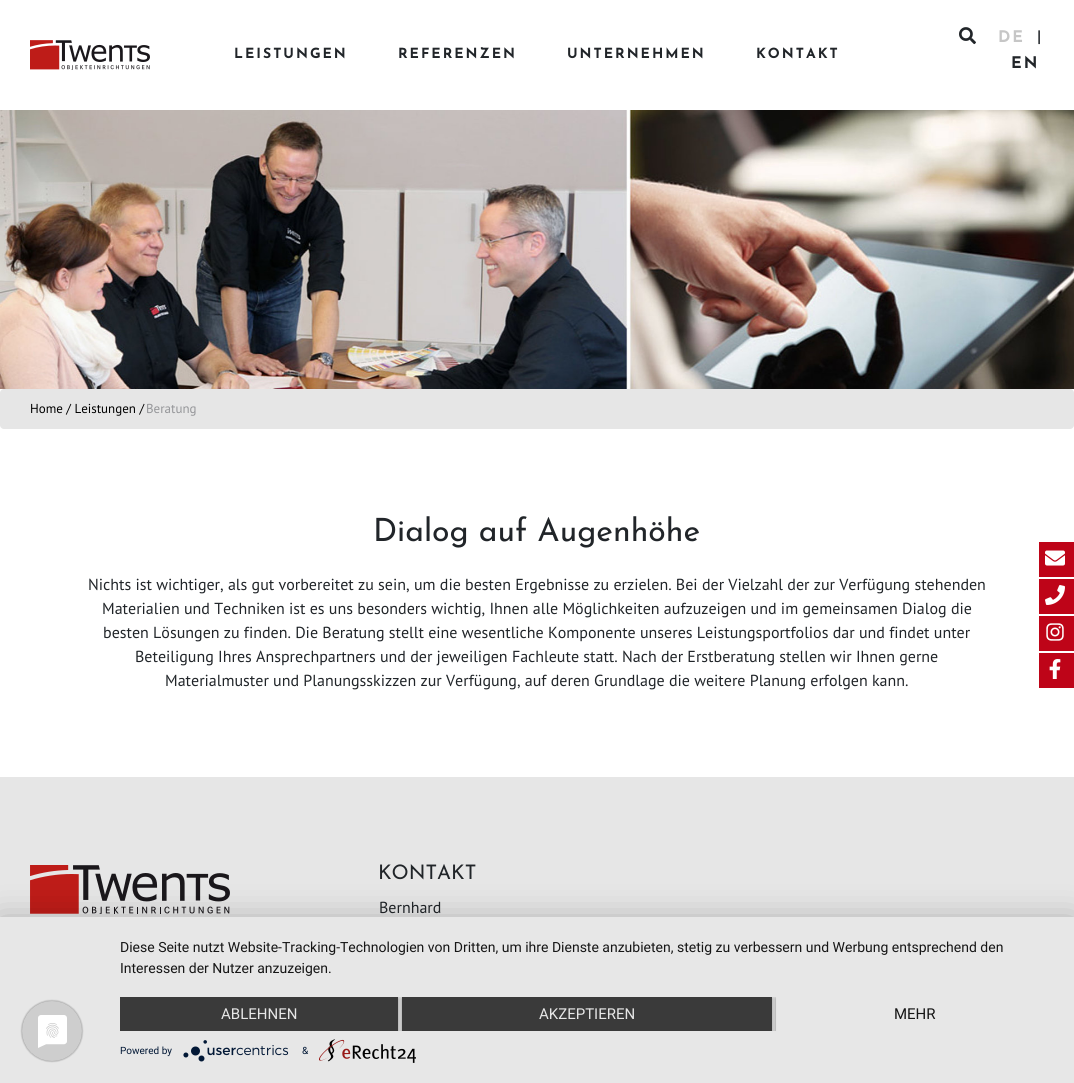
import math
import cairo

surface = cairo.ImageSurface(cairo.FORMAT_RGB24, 1074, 1083)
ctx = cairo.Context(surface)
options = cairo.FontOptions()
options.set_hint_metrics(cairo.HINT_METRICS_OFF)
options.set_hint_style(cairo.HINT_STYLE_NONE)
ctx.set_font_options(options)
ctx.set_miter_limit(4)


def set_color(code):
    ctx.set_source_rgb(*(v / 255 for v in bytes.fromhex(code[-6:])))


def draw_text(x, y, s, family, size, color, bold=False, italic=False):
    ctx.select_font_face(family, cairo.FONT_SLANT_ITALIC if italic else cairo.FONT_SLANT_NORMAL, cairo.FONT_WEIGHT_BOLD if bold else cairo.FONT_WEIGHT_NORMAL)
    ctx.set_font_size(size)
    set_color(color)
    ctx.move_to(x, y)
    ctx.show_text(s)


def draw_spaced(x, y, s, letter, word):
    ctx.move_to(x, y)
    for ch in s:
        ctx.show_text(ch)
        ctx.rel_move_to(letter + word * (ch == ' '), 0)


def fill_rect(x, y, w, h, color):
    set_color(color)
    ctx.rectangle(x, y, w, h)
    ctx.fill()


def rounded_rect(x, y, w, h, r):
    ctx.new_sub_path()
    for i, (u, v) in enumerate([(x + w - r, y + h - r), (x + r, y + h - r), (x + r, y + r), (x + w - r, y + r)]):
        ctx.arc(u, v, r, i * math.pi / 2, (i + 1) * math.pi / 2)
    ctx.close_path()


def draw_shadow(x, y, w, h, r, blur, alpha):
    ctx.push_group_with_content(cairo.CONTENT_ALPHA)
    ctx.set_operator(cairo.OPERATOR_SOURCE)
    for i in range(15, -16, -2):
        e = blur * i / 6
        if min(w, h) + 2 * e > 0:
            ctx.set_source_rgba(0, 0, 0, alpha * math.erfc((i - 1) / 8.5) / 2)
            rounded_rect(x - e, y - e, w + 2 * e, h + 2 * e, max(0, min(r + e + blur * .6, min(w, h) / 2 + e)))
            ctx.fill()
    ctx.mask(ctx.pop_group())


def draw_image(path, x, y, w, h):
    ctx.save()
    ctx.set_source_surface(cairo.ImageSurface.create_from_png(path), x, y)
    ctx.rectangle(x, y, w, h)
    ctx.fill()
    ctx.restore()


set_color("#ffffff")
ctx.paint()
draw_image("assets/img1.png", 30, 40, 120, 30)
ctx.select_font_face("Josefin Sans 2 Thin")
ctx.set_font_size(14)
set_color("#212529")
draw_spaced(234, 58, "LEISTUNGEN", 2, 0)
draw_spaced(398, 58, "REFERENZEN", 2, 0)
draw_spaced(567, 58, "UNTERNEHMEN", 2, 0)
draw_spaced(756, 58, "KONTAKT", 2, 0)
draw_image("assets/img2.png", 959, 27, 17, 18)
ctx.set_font_size(16)
set_color("#c6c6c6")
draw_spaced(998, 42, "DE", 2, 0)
draw_text(1037, 42, "|", "PT Sans", 16, "#212529", bold=True)
ctx.select_font_face("Josefin Sans 2 Thin")
draw_spaced(1011, 68, "EN", 2, 0)
draw_image("assets/img3.png", 0, 110, 1074, 279)
set_color("#e6e6e6")
rounded_rect(0, 389, 1074, 40, 4)
ctx.fill()
draw_text(30, 413, "Home / Leistungen /", "PT Sans", 13, "#000000")
draw_text(146, 413, "Beratung", "PT Sans", 13, "#949598")
draw_text(373, 541, "Dialog auf Augenhöhe", "Josefin Sans Thin", 32, "#212529")
draw_text(88, 590, "Nichts ist wichtiger, als gut vorbereitet zu sein, um die besten Ergebnisse zu erzielen. Bei der Vielzahl der zur Verfügung stehenden", "PT Sans", 16, "#212529")
draw_text(102, 614, "Materialien und Techniken ist es uns besonders wichtig, Ihnen alle Möglichkeiten aufzuzeigen und im gemeinsamen Dialog die", "PT Sans", 16, "#212529")
draw_text(103, 638, "besten Lösungen zu finden. Die Beratung stellt eine wesentliche Komponente unseres Leistungsportfolios dar und findet unter", "PT Sans", 16, "#212529")
draw_text(135, 662, "Beteiligung Ihres Ansprechpartners und der jeweiligen Fachleute statt. Nach der Erstberatung stellen wir Ihnen gerne", "PT Sans", 16, "#212529")
draw_text(165, 686, "Materialmuster und Planungsskizzen zur Verfügung, auf deren Grundlage die weitere Planung erfolgen kann.", "PT Sans", 16, "#212529")
fill_rect(1039, 542, 35, 35, "#be0418")
draw_image("assets/img4.png", 1045, 550, 20, 16)
fill_rect(1039, 579, 35, 35, "#be0418")
draw_image("assets/img5.png", 1045, 585, 20, 20)
fill_rect(1039, 616, 35, 35, "#be0418")
draw_image("assets/img6.png", 1046, 623, 18, 18)
fill_rect(1039, 653, 35, 35, "#be0418")
draw_image("assets/img7.png", 1049, 659, 12, 20)
fill_rect(0, 777, 1074, 140, "#e6e6e6")
draw_image("assets/img8.png", 30, 865, 200, 49)
draw_text(378, 879, "KONTAKT", "Josefin Sans Thin", 20, "#212529")
draw_text(379, 913, "Bernhard", "PT Sans", 16, "#212529")
set_color("#000000")
draw_shadow(0, 923, 1074, 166, 0, 18, 0.3)
fill_rect(0, 917, 1074, 166, "#e7e7e7")
draw_image("assets/img9.png", 20, 999, 64, 64)
draw_text(120, 952, "Diese Seite nutzt Website-Tracking-Technologien von Dritten, um ihre Dienste anzubieten, stetig zu verbessern und Werbung entsprechend den", "Roboto", 14, "#161616")
draw_text(120, 973, "Interessen der Nutzer anzuzeigen.", "Roboto", 14, "#161616")
ctx.save()
ctx.rectangle(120, 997, 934, 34)
ctx.clip()
set_color("#000000")
draw_shadow(120, 998, 278, 34, 0, 2, 0.4)
ctx.restore()
fill_rect(120, 997, 278, 34, "#3a3a3a")
draw_text(221, 1019, "ABLEHNEN", "Roboto", 15, "#e7e7e7")
ctx.save()
ctx.rectangle(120, 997, 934, 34)
ctx.clip()
set_color("#000000")
draw_shadow(402, 998, 370, 34, 0, 2, 0.4)
ctx.restore()
fill_rect(402, 997, 370, 34, "#3a3a3a")
draw_text(539, 1019, "AKZEPTIEREN", "Roboto", 15, "#e7e7e7")
ctx.save()
ctx.rectangle(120, 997, 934, 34)
ctx.clip()
ctx.rectangle(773, 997, 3, 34)
ctx.clip()
set_color("#000000")
draw_shadow(776, 998, 278, 34, 0, 2, 0.4)
ctx.restore()
draw_text(894, 1019, "MEHR", "Roboto", 15, "#161616")
draw_text(120, 1054, "Powered by", "Roboto", 10, "#021836")
draw_image("assets/img10.png", 183, 1040, 106, 22)
draw_text(302, 1054, "&", "Roboto", 10, "#021836")
draw_image("assets/img11.png", 319, 1039, 97, 24)
surface.write_to_png("output.png")
